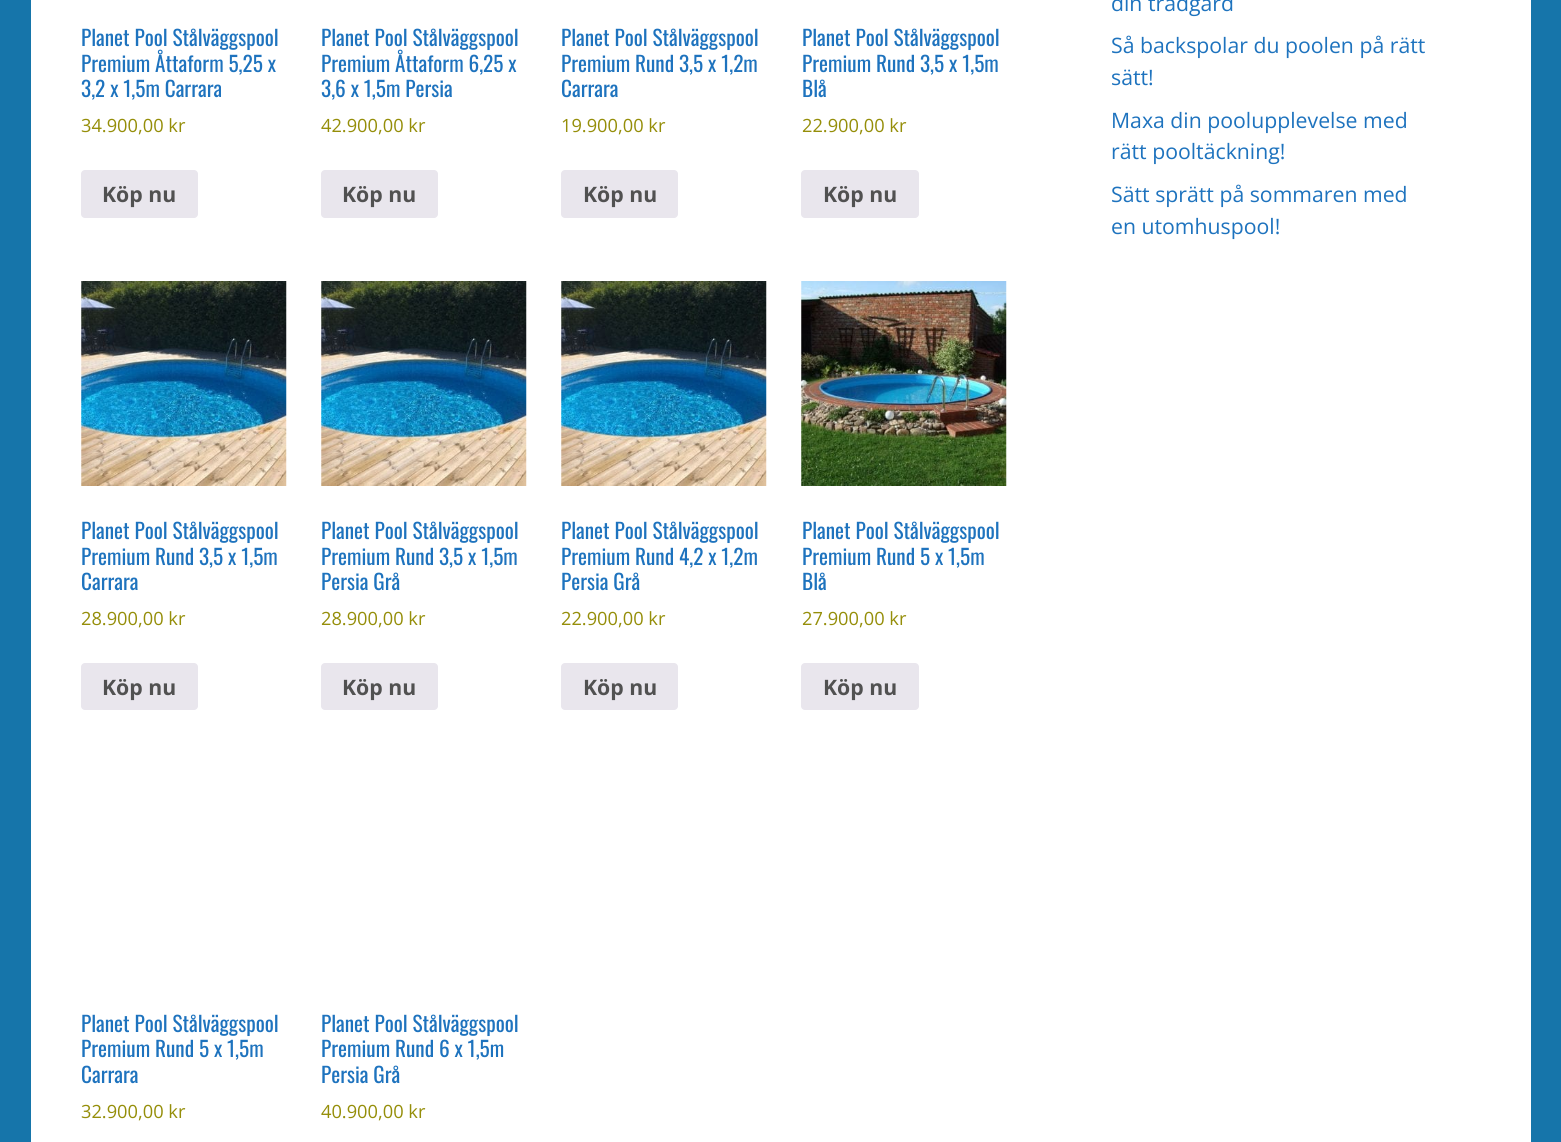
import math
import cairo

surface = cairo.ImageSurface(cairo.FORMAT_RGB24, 1561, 1142)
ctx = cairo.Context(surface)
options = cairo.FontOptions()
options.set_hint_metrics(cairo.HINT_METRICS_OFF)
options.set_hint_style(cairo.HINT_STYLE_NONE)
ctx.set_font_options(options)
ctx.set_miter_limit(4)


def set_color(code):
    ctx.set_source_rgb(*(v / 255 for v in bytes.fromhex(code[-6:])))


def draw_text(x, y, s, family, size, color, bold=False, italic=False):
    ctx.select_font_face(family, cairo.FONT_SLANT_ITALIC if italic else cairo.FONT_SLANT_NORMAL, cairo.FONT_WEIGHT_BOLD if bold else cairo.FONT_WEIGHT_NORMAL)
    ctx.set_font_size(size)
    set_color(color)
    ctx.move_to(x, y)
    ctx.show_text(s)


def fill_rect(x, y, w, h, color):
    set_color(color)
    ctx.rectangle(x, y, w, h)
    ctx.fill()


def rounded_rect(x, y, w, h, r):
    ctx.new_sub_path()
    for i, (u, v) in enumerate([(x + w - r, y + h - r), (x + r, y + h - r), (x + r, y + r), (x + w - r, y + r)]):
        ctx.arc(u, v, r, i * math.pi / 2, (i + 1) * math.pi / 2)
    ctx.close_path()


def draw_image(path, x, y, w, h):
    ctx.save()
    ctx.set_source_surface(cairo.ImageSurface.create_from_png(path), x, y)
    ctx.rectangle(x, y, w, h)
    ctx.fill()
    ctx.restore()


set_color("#1675aa")
ctx.paint()
fill_rect(31, 0, 1500, 1142, "#ffffff")
draw_text(81, 46, "Planet Pool Stålväggspool", "Oswald", 21.25, "#1e73be")
draw_text(81, 72, "Premium Åttaform 5,25 x", "Oswald", 21.25, "#1e73be")
draw_text(81, 97, "3,2 x 1,5m Carrara", "Oswald", 21.25, "#1e73be")
draw_text(81, 132, "34.900,00 kr", "Open Sans", 18.25, "#958e09")
set_color("#e9e6ed")
rounded_rect(81, 170, 117, 48, 4)
ctx.fill()
draw_text(102, 202, "Köp nu", "Open Sans", 21.25, "#515151", bold=True)
draw_text(321, 46, "Planet Pool Stålväggspool", "Oswald", 21.25, "#1e73be")
draw_text(321, 72, "Premium Åttaform 6,25 x", "Oswald", 21.25, "#1e73be")
draw_text(321, 97, "3,6 x 1,5m Persia", "Oswald", 21.25, "#1e73be")
draw_text(321, 132, "42.900,00 kr", "Open Sans", 18.25, "#958e09")
set_color("#e9e6ed")
rounded_rect(321, 170, 117, 48, 4)
ctx.fill()
draw_text(342, 202, "Köp nu", "Open Sans", 21.25, "#515151", bold=True)
draw_text(561, 46, "Planet Pool Stålväggspool", "Oswald", 21.25, "#1e73be")
draw_text(561, 72, "Premium Rund 3,5 x 1,2m", "Oswald", 21.25, "#1e73be")
draw_text(561, 97, "Carrara", "Oswald", 21.25, "#1e73be")
draw_text(561, 132, "19.900,00 kr", "Open Sans", 18.25, "#958e09")
set_color("#e9e6ed")
rounded_rect(561, 170, 117, 48, 4)
ctx.fill()
draw_text(583, 202, "Köp nu", "Open Sans", 21.25, "#515151", bold=True)
draw_text(802, 46, "Planet Pool Stålväggspool", "Oswald", 21.25, "#1e73be")
draw_text(802, 72, "Premium Rund 3,5 x 1,5m", "Oswald", 21.25, "#1e73be")
draw_text(802, 97, "Blå", "Oswald", 21.25, "#1e73be")
draw_text(802, 132, "22.900,00 kr", "Open Sans", 18.25, "#958e09")
set_color("#e9e6ed")
rounded_rect(801, 170, 118, 48, 4)
ctx.fill()
draw_text(823, 202, "Köp nu", "Open Sans", 21.25, "#515151", bold=True)
draw_image("assets/img1.png", 81, 281, 206, 205)
draw_text(81, 539, "Planet Pool Stålväggspool", "Oswald", 21.25, "#1e73be")
draw_text(81, 565, "Premium Rund 3,5 x 1,5m", "Oswald", 21.25, "#1e73be")
draw_text(81, 590, "Carrara", "Oswald", 21.25, "#1e73be")
draw_text(81, 625, "28.900,00 kr", "Open Sans", 18.25, "#958e09")
set_color("#e9e6ed")
rounded_rect(81, 663, 117, 47, 4)
ctx.fill()
draw_text(102, 695, "Köp nu", "Open Sans", 21.25, "#515151", bold=True)
draw_image("assets/img2.png", 321, 281, 206, 205)
draw_text(321, 539, "Planet Pool Stålväggspool", "Oswald", 21.25, "#1e73be")
draw_text(321, 565, "Premium Rund 3,5 x 1,5m", "Oswald", 21.25, "#1e73be")
draw_text(321, 590, "Persia Grå", "Oswald", 21.25, "#1e73be")
draw_text(321, 625, "28.900,00 kr", "Open Sans", 18.25, "#958e09")
set_color("#e9e6ed")
rounded_rect(321, 663, 117, 47, 4)
ctx.fill()
draw_text(342, 695, "Köp nu", "Open Sans", 21.25, "#515151", bold=True)
draw_image("assets/img3.png", 561, 281, 206, 205)
draw_text(561, 539, "Planet Pool Stålväggspool", "Oswald", 21.25, "#1e73be")
draw_text(561, 565, "Premium Rund 4,2 x 1,2m", "Oswald", 21.25, "#1e73be")
draw_text(561, 590, "Persia Grå", "Oswald", 21.25, "#1e73be")
draw_text(561, 625, "22.900,00 kr", "Open Sans", 18.25, "#958e09")
set_color("#e9e6ed")
rounded_rect(561, 663, 117, 47, 4)
ctx.fill()
draw_text(583, 695, "Köp nu", "Open Sans", 21.25, "#515151", bold=True)
draw_image("assets/img4.png", 801, 281, 206, 205)
draw_text(802, 539, "Planet Pool Stålväggspool", "Oswald", 21.25, "#1e73be")
draw_text(802, 565, "Premium Rund 5 x 1,5m", "Oswald", 21.25, "#1e73be")
draw_text(802, 590, "Blå", "Oswald", 21.25, "#1e73be")
draw_text(802, 625, "27.900,00 kr", "Open Sans", 18.25, "#958e09")
set_color("#e9e6ed")
rounded_rect(801, 663, 118, 47, 4)
ctx.fill()
draw_text(823, 695, "Köp nu", "Open Sans", 21.25, "#515151", bold=True)
draw_text(81, 1032, "Planet Pool Stålväggspool", "Oswald", 21.25, "#1e73be")
draw_text(81, 1057, "Premium Rund 5 x 1,5m", "Oswald", 21.25, "#1e73be")
draw_text(81, 1083, "Carrara", "Oswald", 21.25, "#1e73be")
draw_text(81, 1118, "32.900,00 kr", "Open Sans", 18.25, "#958e09")
draw_text(321, 1032, "Planet Pool Stålväggspool", "Oswald", 21.25, "#1e73be")
draw_text(321, 1057, "Premium Rund 6 x 1,5m", "Oswald", 21.25, "#1e73be")
draw_text(321, 1083, "Persia Grå", "Oswald", 21.25, "#1e73be")
draw_text(321, 1118, "40.900,00 kr", "Open Sans", 18.25, "#958e09")
draw_text(1111, 11, "din trädgård", "Open Sans", 21.25, "#1e73be")
draw_text(1111, 53, "Så backspolar du poolen på rätt", "Open Sans", 21.25, "#1e73be")
draw_text(1111, 85, "sätt!", "Open Sans", 21.25, "#1e73be")
draw_text(1111, 128, "Maxa din poolupplevelse med", "Open Sans", 21.25, "#1e73be")
draw_text(1111, 159, "rätt pooltäckning!", "Open Sans", 21.25, "#1e73be")
draw_text(1111, 202, "Sätt sprätt på sommaren med", "Open Sans", 21.25, "#1e73be")
draw_text(1111, 234, "en utomhuspool!", "Open Sans", 21.25, "#1e73be")
surface.write_to_png("output.png")
